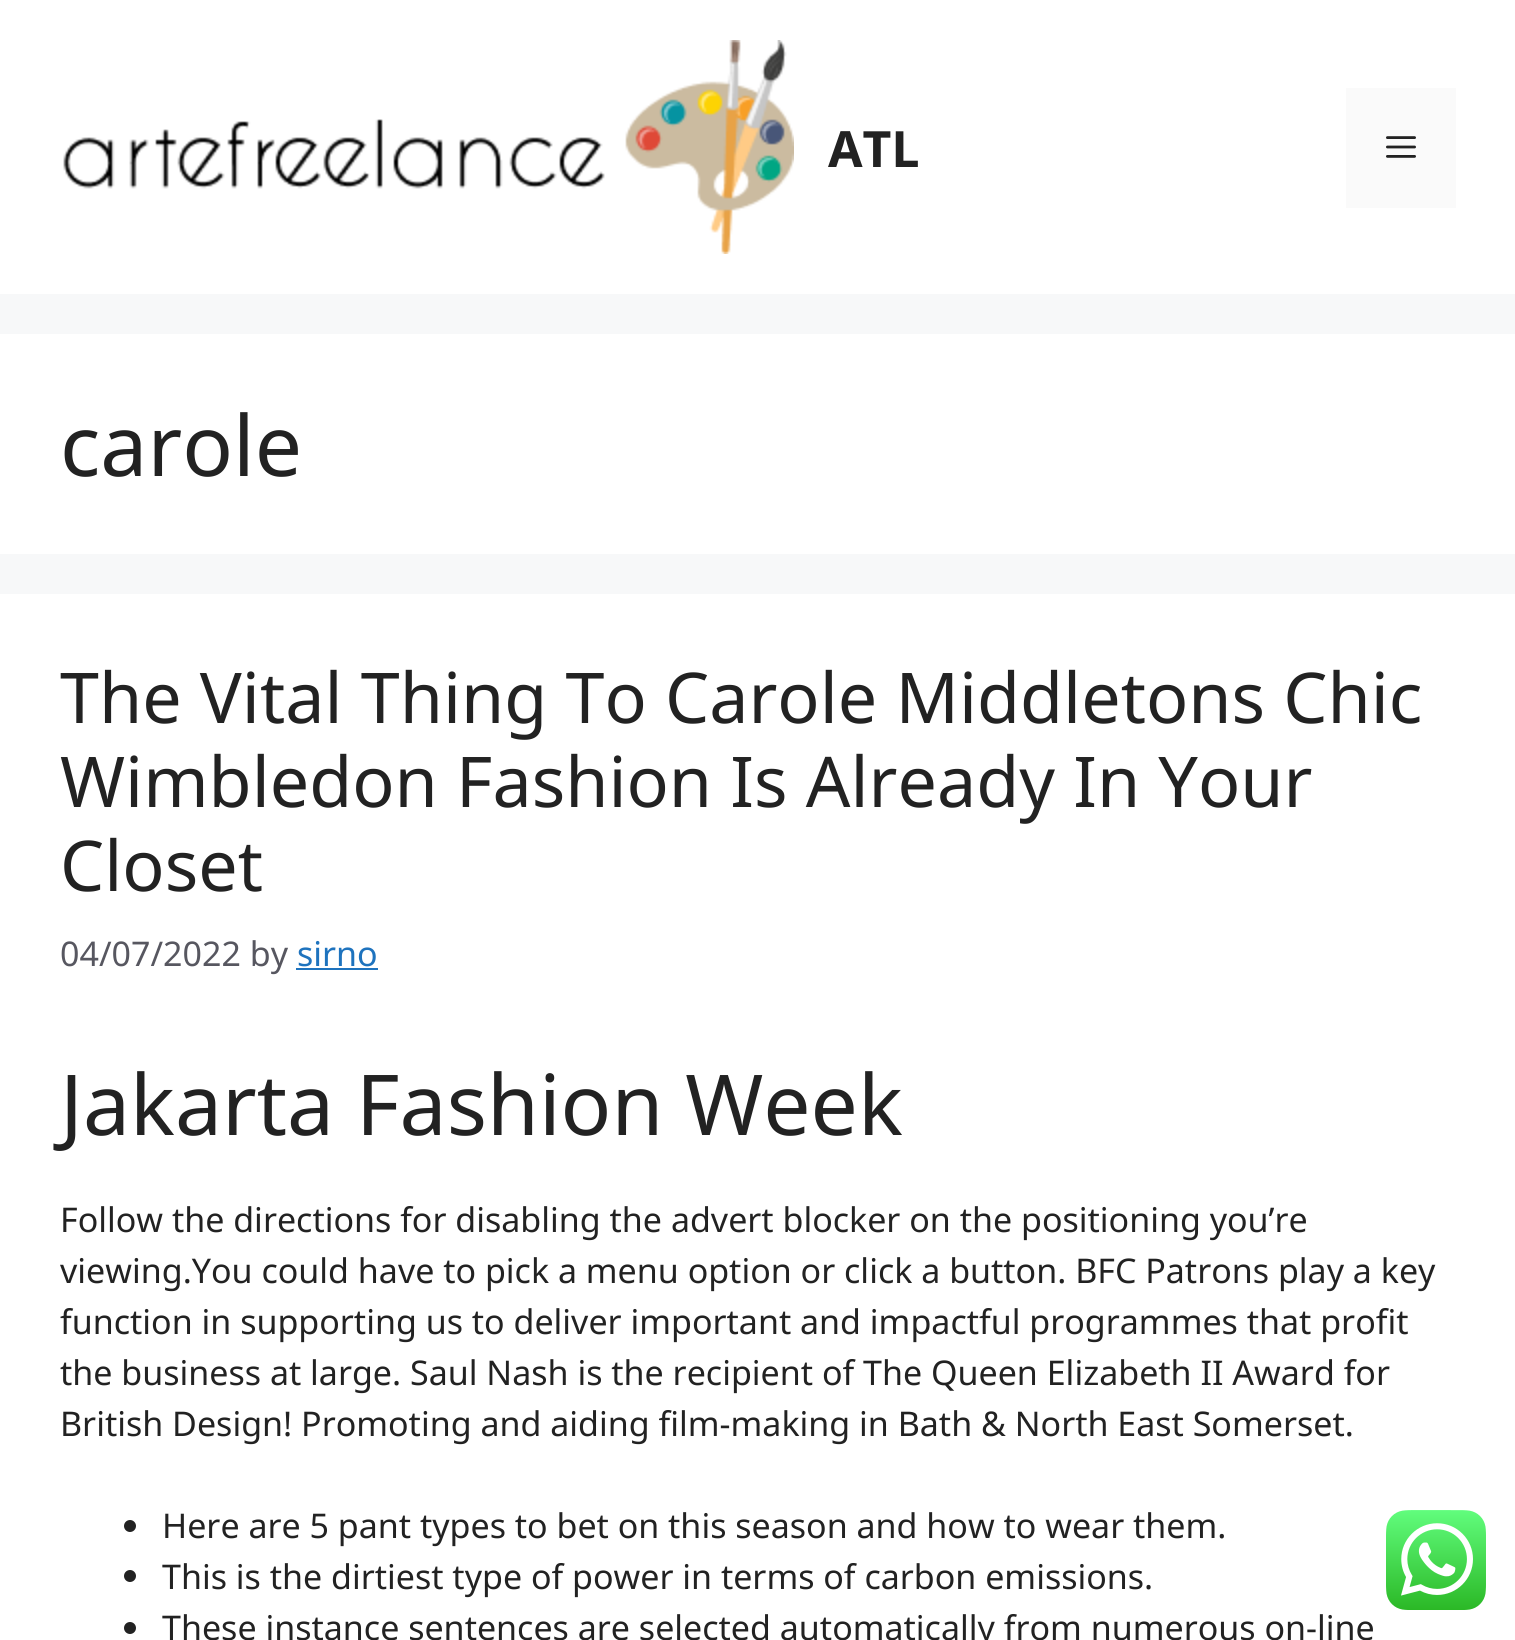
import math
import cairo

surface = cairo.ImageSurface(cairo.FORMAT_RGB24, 1515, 1640)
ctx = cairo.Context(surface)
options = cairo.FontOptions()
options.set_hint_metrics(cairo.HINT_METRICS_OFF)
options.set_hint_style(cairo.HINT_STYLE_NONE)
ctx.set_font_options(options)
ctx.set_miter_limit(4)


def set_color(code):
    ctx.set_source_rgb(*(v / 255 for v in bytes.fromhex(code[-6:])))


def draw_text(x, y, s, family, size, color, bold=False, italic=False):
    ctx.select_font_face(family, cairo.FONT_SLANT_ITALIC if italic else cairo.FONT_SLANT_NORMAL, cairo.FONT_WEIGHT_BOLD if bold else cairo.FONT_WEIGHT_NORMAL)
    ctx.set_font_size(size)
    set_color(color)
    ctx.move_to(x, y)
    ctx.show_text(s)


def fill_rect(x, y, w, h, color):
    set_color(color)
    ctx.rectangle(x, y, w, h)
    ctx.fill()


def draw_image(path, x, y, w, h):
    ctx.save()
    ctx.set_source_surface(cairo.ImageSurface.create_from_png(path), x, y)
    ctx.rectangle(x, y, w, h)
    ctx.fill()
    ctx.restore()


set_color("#f7f8f9")
ctx.paint()
fill_rect(0, 0, 1515, 294, "#ffffff")
draw_image("assets/img1.png", 63, 40, 731, 214)
draw_text(828, 167, "ATL", "Noto Sans", 50, "#222222", bold=True)
fill_rect(1346, 88, 110, 120, "#fafafa")
draw_image("assets/img2.png", 1386, 136, 30, 22)
fill_rect(0, 334, 1515, 220, "#ffffff")
draw_text(60, 476, "carole", "Noto Sans", 84, "#222222")
fill_rect(0, 594, 1515, 1046, "#ffffff")
draw_text(60, 723, "The Vital Thing To Carole Middletons Chic", "Noto Sans", 70, "#222222")
draw_text(60, 807, "Wimbledon Fashion Is Already In Your", "Noto Sans", 70, "#222222")
draw_text(60, 891, "Closet", "Noto Sans", 70, "#222222")
draw_text(60, 966, "04/07/2022 by", "Noto Sans", 34, "#575760")
draw_text(297, 966, "sirno", "Noto Sans", 34, "#1e73be")
fill_rect(296, 968, 82, 2, "#1e73be")
draw_text(60, 1135, "Jakarta Fashion Week", "Noto Sans", 84, "#222222")
draw_text(60, 1232, "Follow the directions for disabling the advert blocker on the positioning you’re", "Noto Sans", 34, "#222222")
draw_text(60, 1283, "viewing.You could have to pick a menu option or click a button. BFC Patrons play a key", "Noto Sans", 34, "#222222")
draw_text(60, 1334, "function in supporting us to deliver important and impactful programmes that profit", "Noto Sans", 34, "#222222")
draw_text(60, 1385, "the business at large. Saul Nash is the recipient of The Queen Elizabeth II Award for", "Noto Sans", 34, "#222222")
draw_text(60, 1436, "British Design! Promoting and aiding film-making in Bath & North East Somerset.", "Noto Sans", 34, "#222222")
ctx.new_path()
ctx.arc(130, 1526, 6, 0, 2 * math.pi)
ctx.fill()
draw_text(162, 1538, "Here are 5 pant types to bet on this season and how to wear them.", "Noto Sans", 34, "#222222")
ctx.new_path()
ctx.arc(130, 1576, 6, 0, 2 * math.pi)
ctx.fill()
draw_text(162, 1589, "This is the dirtiest type of power in terms of carbon emissions.", "Noto Sans", 34, "#222222")
ctx.new_path()
ctx.arc(130, 1628, 6, 0, 2 * math.pi)
ctx.fill()
draw_text(162, 1640, "These instance sentences are selected automatically from numerous on-line", "Noto Sans", 34, "#222222")
draw_image("assets/img3.png", 1386, 1510, 100, 100)
surface.write_to_png("output.png")
